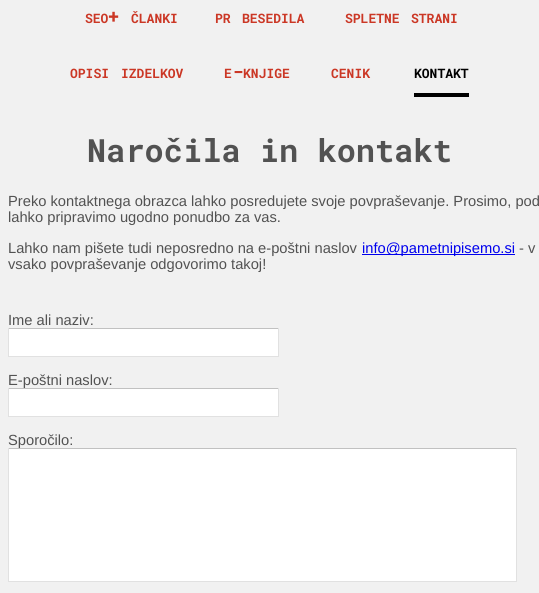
import math
import cairo

surface = cairo.ImageSurface(cairo.FORMAT_RGB24, 539, 593)
ctx = cairo.Context(surface)
options = cairo.FontOptions()
options.set_hint_metrics(cairo.HINT_METRICS_OFF)
options.set_hint_style(cairo.HINT_STYLE_NONE)
ctx.set_font_options(options)
ctx.set_miter_limit(4)


def set_color(code):
    ctx.set_source_rgb(*(v / 255 for v in bytes.fromhex(code[-6:])))


def draw_text(x, y, s, family, size, color, bold=False, italic=False):
    ctx.select_font_face(family, cairo.FONT_SLANT_ITALIC if italic else cairo.FONT_SLANT_NORMAL, cairo.FONT_WEIGHT_BOLD if bold else cairo.FONT_WEIGHT_NORMAL)
    ctx.set_font_size(size)
    set_color(color)
    ctx.move_to(x, y)
    ctx.show_text(s)


def fill_rect(x, y, w, h, color):
    set_color(color)
    ctx.rectangle(x, y, w, h)
    ctx.fill()


set_color("#f1f1f1")
ctx.paint()
draw_text(85, 23, "SEO", "Roboto Mono", 13, "#cb3725", bold=True)
draw_text(108, 23, "+", "Roboto Mono", 19, "#cb3725", bold=True)
draw_text(131, 23, "ČLANKI", "Roboto Mono", 13, "#cb3725", bold=True)
draw_text(215, 23, "PR", "Roboto Mono", 13, "#cb3725", bold=True)
draw_text(242, 23, "BESEDILA", "Roboto Mono", 13, "#cb3725", bold=True)
draw_text(345, 23, "SPLETNE", "Roboto Mono", 13, "#cb3725", bold=True)
draw_text(411, 23, "STRANI", "Roboto Mono", 13, "#cb3725", bold=True)
draw_text(70, 78, "OPISI", "Roboto Mono", 13, "#cb3725", bold=True)
draw_text(121, 78, "IZDELKOV", "Roboto Mono", 13, "#cb3725", bold=True)
draw_text(224, 78, "E", "Roboto Mono", 13, "#cb3725", bold=True)
draw_text(232, 78, "-", "Roboto Mono", 19, "#cb3725", bold=True)
draw_text(243, 78, "KNJIGE", "Roboto Mono", 13, "#cb3725", bold=True)
draw_text(331, 78, "CENIK", "Roboto Mono", 13, "#cb3725", bold=True)
fill_rect(414, 93, 55, 4, "#000000")
draw_text(414, 78, "KONTAKT", "Roboto Mono", 13, "#000000", bold=True)
draw_text(87, 162, "Naročila in kontakt", "Roboto Mono", 32, "#525252", bold=True)
draw_text(8, 206, "Preko kontaktnega obrazca lahko posredujete svoje povpraševanje. Prosimo, pod", "Liberation Sans", 14.7, "#525252")
draw_text(8, 222, "lahko pripravimo ugodno ponudbo za vas.", "Liberation Sans", 14.7, "#525252")
draw_text(8, 253, "Lahko nam pišete tudi neposredno na e-poštni naslov", "Liberation Sans", 14.7, "#525252")
fill_rect(362, 254, 153, 1, "#0000ee")
draw_text(362, 253, "info@pametnipisemo.si", "Liberation Sans", 14.7, "#0000ee")
draw_text(519, 253, "- v", "Liberation Sans", 14.7, "#525252")
draw_text(8, 269, "vsako povpraševanje odgovorimo takoj!", "Liberation Sans", 14.7, "#525252")
draw_text(8, 325, "Ime ali naziv:", "Liberation Sans", 14.7, "#525252")
fill_rect(9, 329, 269, 27, "#ffffff")
fill_rect(8, 328, 271, 1, "#c1c1c1")
fill_rect(278, 328, 1, 29, "#e1e1e1")
fill_rect(8, 356, 271, 1, "#e1e1e1")
fill_rect(8, 328, 1, 29, "#e1e1e1")
draw_text(8, 385, "E-poštni naslov:", "Liberation Sans", 14.7, "#525252")
fill_rect(9, 389, 269, 27, "#ffffff")
fill_rect(8, 388, 271, 1, "#c1c1c1")
fill_rect(278, 388, 1, 29, "#e1e1e1")
fill_rect(8, 416, 271, 1, "#e1e1e1")
fill_rect(8, 388, 1, 29, "#e1e1e1")
draw_text(8, 445, "Sporočilo:", "Liberation Sans", 14.7, "#525252")
fill_rect(9, 449, 507, 132, "#ffffff")
fill_rect(8, 448, 509, 1, "#c1c1c1")
fill_rect(516, 448, 1, 134, "#e1e1e1")
fill_rect(8, 581, 509, 1, "#e1e1e1")
fill_rect(8, 448, 1, 134, "#e1e1e1")
surface.write_to_png("output.png")
